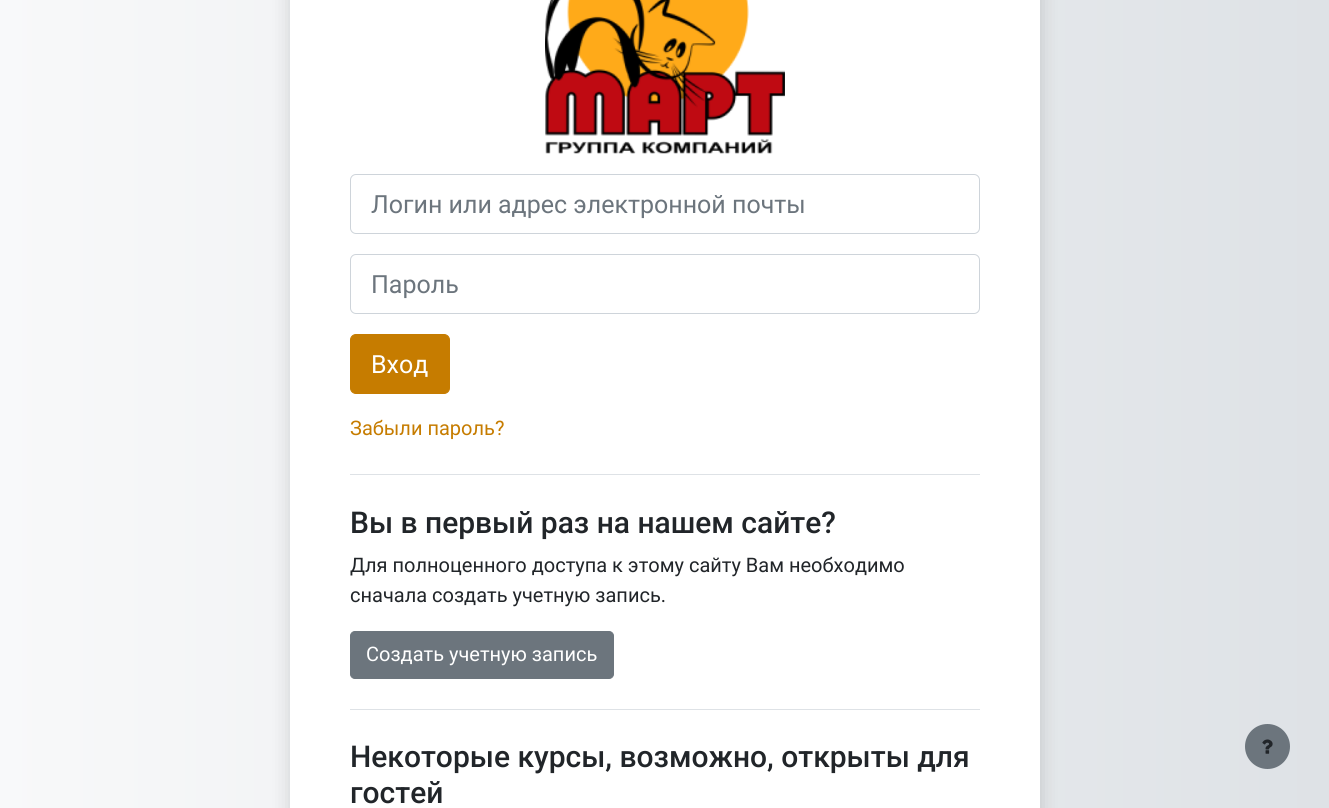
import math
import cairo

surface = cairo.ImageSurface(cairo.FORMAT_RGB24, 1329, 808)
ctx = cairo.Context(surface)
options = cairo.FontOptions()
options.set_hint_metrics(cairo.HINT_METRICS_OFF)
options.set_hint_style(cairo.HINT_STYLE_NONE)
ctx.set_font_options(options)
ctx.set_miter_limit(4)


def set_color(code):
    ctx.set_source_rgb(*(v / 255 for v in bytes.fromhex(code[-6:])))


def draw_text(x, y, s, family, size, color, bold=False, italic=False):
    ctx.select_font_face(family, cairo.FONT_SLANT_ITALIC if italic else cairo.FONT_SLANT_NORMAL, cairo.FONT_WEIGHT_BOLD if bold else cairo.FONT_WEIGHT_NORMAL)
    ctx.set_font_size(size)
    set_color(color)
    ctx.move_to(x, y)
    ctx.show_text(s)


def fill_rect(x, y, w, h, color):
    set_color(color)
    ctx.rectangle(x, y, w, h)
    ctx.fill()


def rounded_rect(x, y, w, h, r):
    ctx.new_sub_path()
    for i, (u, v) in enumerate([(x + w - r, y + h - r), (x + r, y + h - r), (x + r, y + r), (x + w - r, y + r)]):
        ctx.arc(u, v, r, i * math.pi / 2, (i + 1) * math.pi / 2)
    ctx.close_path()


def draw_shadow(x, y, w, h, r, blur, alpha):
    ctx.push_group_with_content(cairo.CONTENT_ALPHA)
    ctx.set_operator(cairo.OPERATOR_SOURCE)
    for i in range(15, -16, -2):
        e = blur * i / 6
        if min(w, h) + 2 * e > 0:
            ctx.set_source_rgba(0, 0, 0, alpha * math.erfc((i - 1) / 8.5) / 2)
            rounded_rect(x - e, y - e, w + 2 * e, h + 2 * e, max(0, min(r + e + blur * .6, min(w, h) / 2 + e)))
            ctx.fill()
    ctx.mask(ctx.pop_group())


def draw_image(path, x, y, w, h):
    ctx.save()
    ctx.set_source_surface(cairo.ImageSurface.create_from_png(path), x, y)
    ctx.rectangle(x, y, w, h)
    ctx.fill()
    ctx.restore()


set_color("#ffffff")
ctx.paint()
gradient = cairo.LinearGradient(0, 431, 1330, 431)
gradient.add_color_stop_rgba(0, 0.973, 0.976, 0.98, 1)
gradient.add_color_stop_rgba(1, 0.871, 0.886, 0.902, 1)
ctx.set_source(gradient)
ctx.rectangle(0, 0, 1329, 808)
ctx.fill()
set_color("#000000")
draw_shadow(290, -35, 750, 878, 5, 10, 0.15)
fill_rect(290, 0, 750, 808, "#ffffff")
draw_image("assets/img1.png", 545, 0, 240, 154)
rounded_rect(350.5, 174.5, 629, 59, 5.5)
set_color("#ced4da")
ctx.set_line_width(1)
ctx.stroke()
draw_text(371, 213, "Логин или адрес электронной почты", "Roboto", 25, "#6c757d")
rounded_rect(350.5, 254.5, 629, 59, 5.5)
set_color("#ced4da")
ctx.stroke()
draw_text(371, 293, "Пароль", "Roboto", 25, "#6c757d")
set_color("#c67c00")
rounded_rect(350.5, 334.5, 99, 59, 5.5)
ctx.fill_preserve()
ctx.stroke()
draw_text(371, 373, "Вход", "Roboto", 25, "#ffffff")
draw_text(350, 435, "Забыли пароль?", "Roboto", 20, "#c67c00")
fill_rect(350, 474, 630, 1, "#dee2e6")
draw_text(350, 533, "Вы в первый раз на нашем сайте?", "Roboto Medium", 30, "#212529")
draw_text(350, 572, "Для полноценного доступа к этому сайту Вам необходимо", "Roboto", 20, "#212529")
draw_text(350, 602, "сначала создать учетную запись.", "Roboto", 20, "#212529")
set_color("#6c757d")
rounded_rect(350.5, 631.5, 263, 47, 4.5)
ctx.fill_preserve()
ctx.stroke()
draw_text(366, 661, "Создать учетную запись", "Roboto", 20, "#ffffff")
fill_rect(350, 709, 630, 1, "#dee2e6")
draw_text(350, 767, "Некоторые курсы, возможно, открыты для", "Roboto Medium", 30, "#212529")
draw_text(350, 803, "гостей", "Roboto Medium", 30, "#212529")
set_color("#6c757d")
ctx.new_path()
ctx.arc(1267.5, 746.5, 22.5, 0, 2 * math.pi)
ctx.fill()
draw_image("assets/img2.png", 1262, 739, 11, 15)
surface.write_to_png("output.png")
